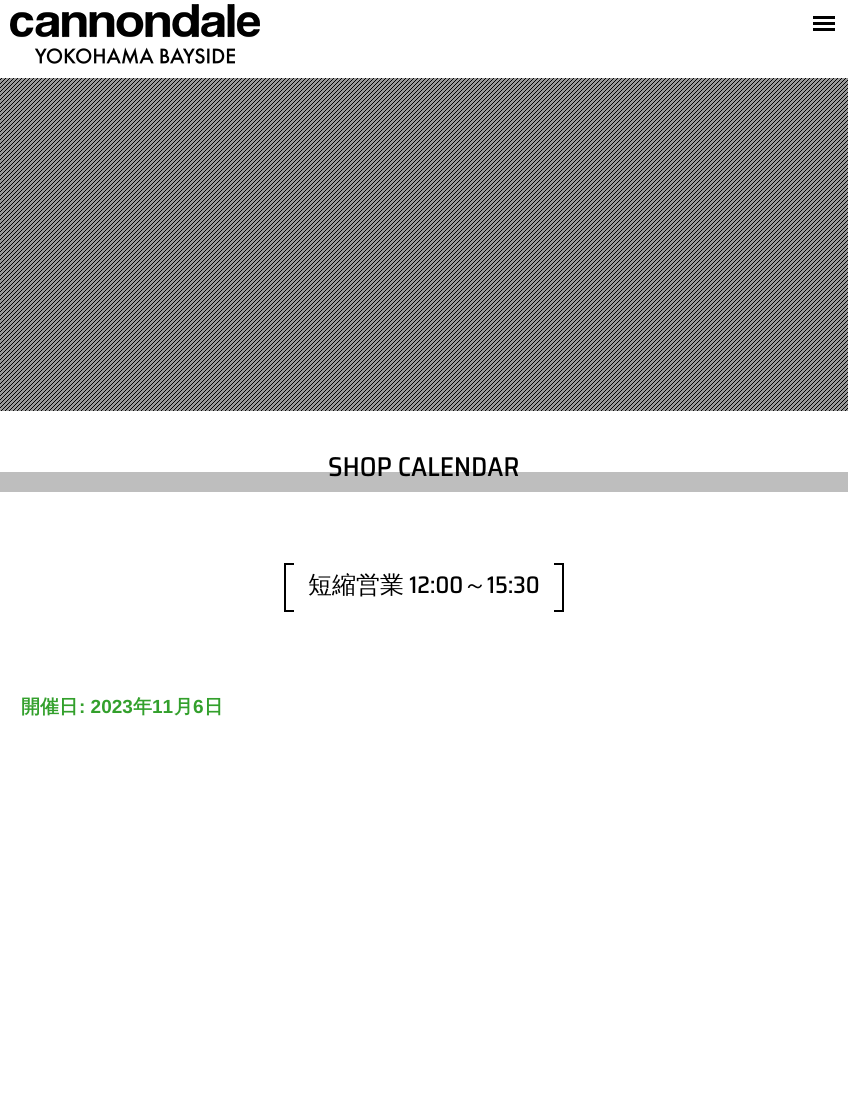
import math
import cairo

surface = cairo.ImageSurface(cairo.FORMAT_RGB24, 848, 1105)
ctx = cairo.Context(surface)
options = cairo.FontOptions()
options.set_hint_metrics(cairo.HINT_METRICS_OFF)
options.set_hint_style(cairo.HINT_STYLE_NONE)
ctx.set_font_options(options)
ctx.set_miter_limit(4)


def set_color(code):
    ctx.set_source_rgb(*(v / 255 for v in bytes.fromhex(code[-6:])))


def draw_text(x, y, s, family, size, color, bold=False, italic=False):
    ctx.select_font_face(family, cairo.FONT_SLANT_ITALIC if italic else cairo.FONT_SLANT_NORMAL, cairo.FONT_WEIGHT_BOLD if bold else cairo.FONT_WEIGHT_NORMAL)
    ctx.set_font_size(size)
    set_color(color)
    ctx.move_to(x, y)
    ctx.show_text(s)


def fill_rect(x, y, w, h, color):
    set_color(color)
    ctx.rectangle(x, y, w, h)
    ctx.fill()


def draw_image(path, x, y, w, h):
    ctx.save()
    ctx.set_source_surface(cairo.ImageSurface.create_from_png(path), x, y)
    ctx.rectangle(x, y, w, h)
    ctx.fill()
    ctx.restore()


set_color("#ffffff")
ctx.paint()
draw_image("assets/img1.png", 10, 4, 250, 60)
fill_rect(813, 16, 22, 3, "#000000")
fill_rect(813, 22, 22, 3, "#000000")
fill_rect(813, 28, 22, 3, "#000000")
fill_rect(0, 78, 848, 333, "#999999")
draw_image("assets/img2.png", 0, 78, 848, 333)
fill_rect(0, 472, 848, 20, "#bebebe")
draw_image("assets/img3.png", 329, 457, 190, 20)
fill_rect(284, 563, 10, 2, "#000000")
fill_rect(284, 610, 10, 2, "#000000")
fill_rect(284, 563, 2, 49, "#000000")
draw_text(308, 593, "短縮営業", "WenQuanYi Zen Hei Medium", 24, "#000000")
draw_image("assets/img4.png", 409, 576, 53, 18)
draw_text(463, 593, "～", "WenQuanYi Zen Hei Medium", 24, "#000000")
draw_image("assets/img5.png", 487, 576, 52, 18)
fill_rect(554, 563, 10, 2, "#000000")
fill_rect(562, 563, 2, 49, "#000000")
fill_rect(554, 610, 10, 2, "#000000")
draw_text(21, 713, "開催日", "WenQuanYi Zen Hei", 19, "#33a02c", bold=True)
draw_text(79, 713, ": 2023", "Liberation Sans", 19, "#33a02c", bold=True)
draw_text(133, 713, "年", "WenQuanYi Zen Hei", 19, "#33a02c", bold=True)
draw_text(152, 713, "11", "Liberation Sans", 19, "#33a02c", bold=True)
draw_text(174, 713, "月", "WenQuanYi Zen Hei", 19, "#33a02c", bold=True)
draw_text(193, 713, "6", "Liberation Sans", 19, "#33a02c", bold=True)
draw_text(204, 713, "日", "WenQuanYi Zen Hei", 19, "#33a02c", bold=True)
surface.write_to_png("output.png")
